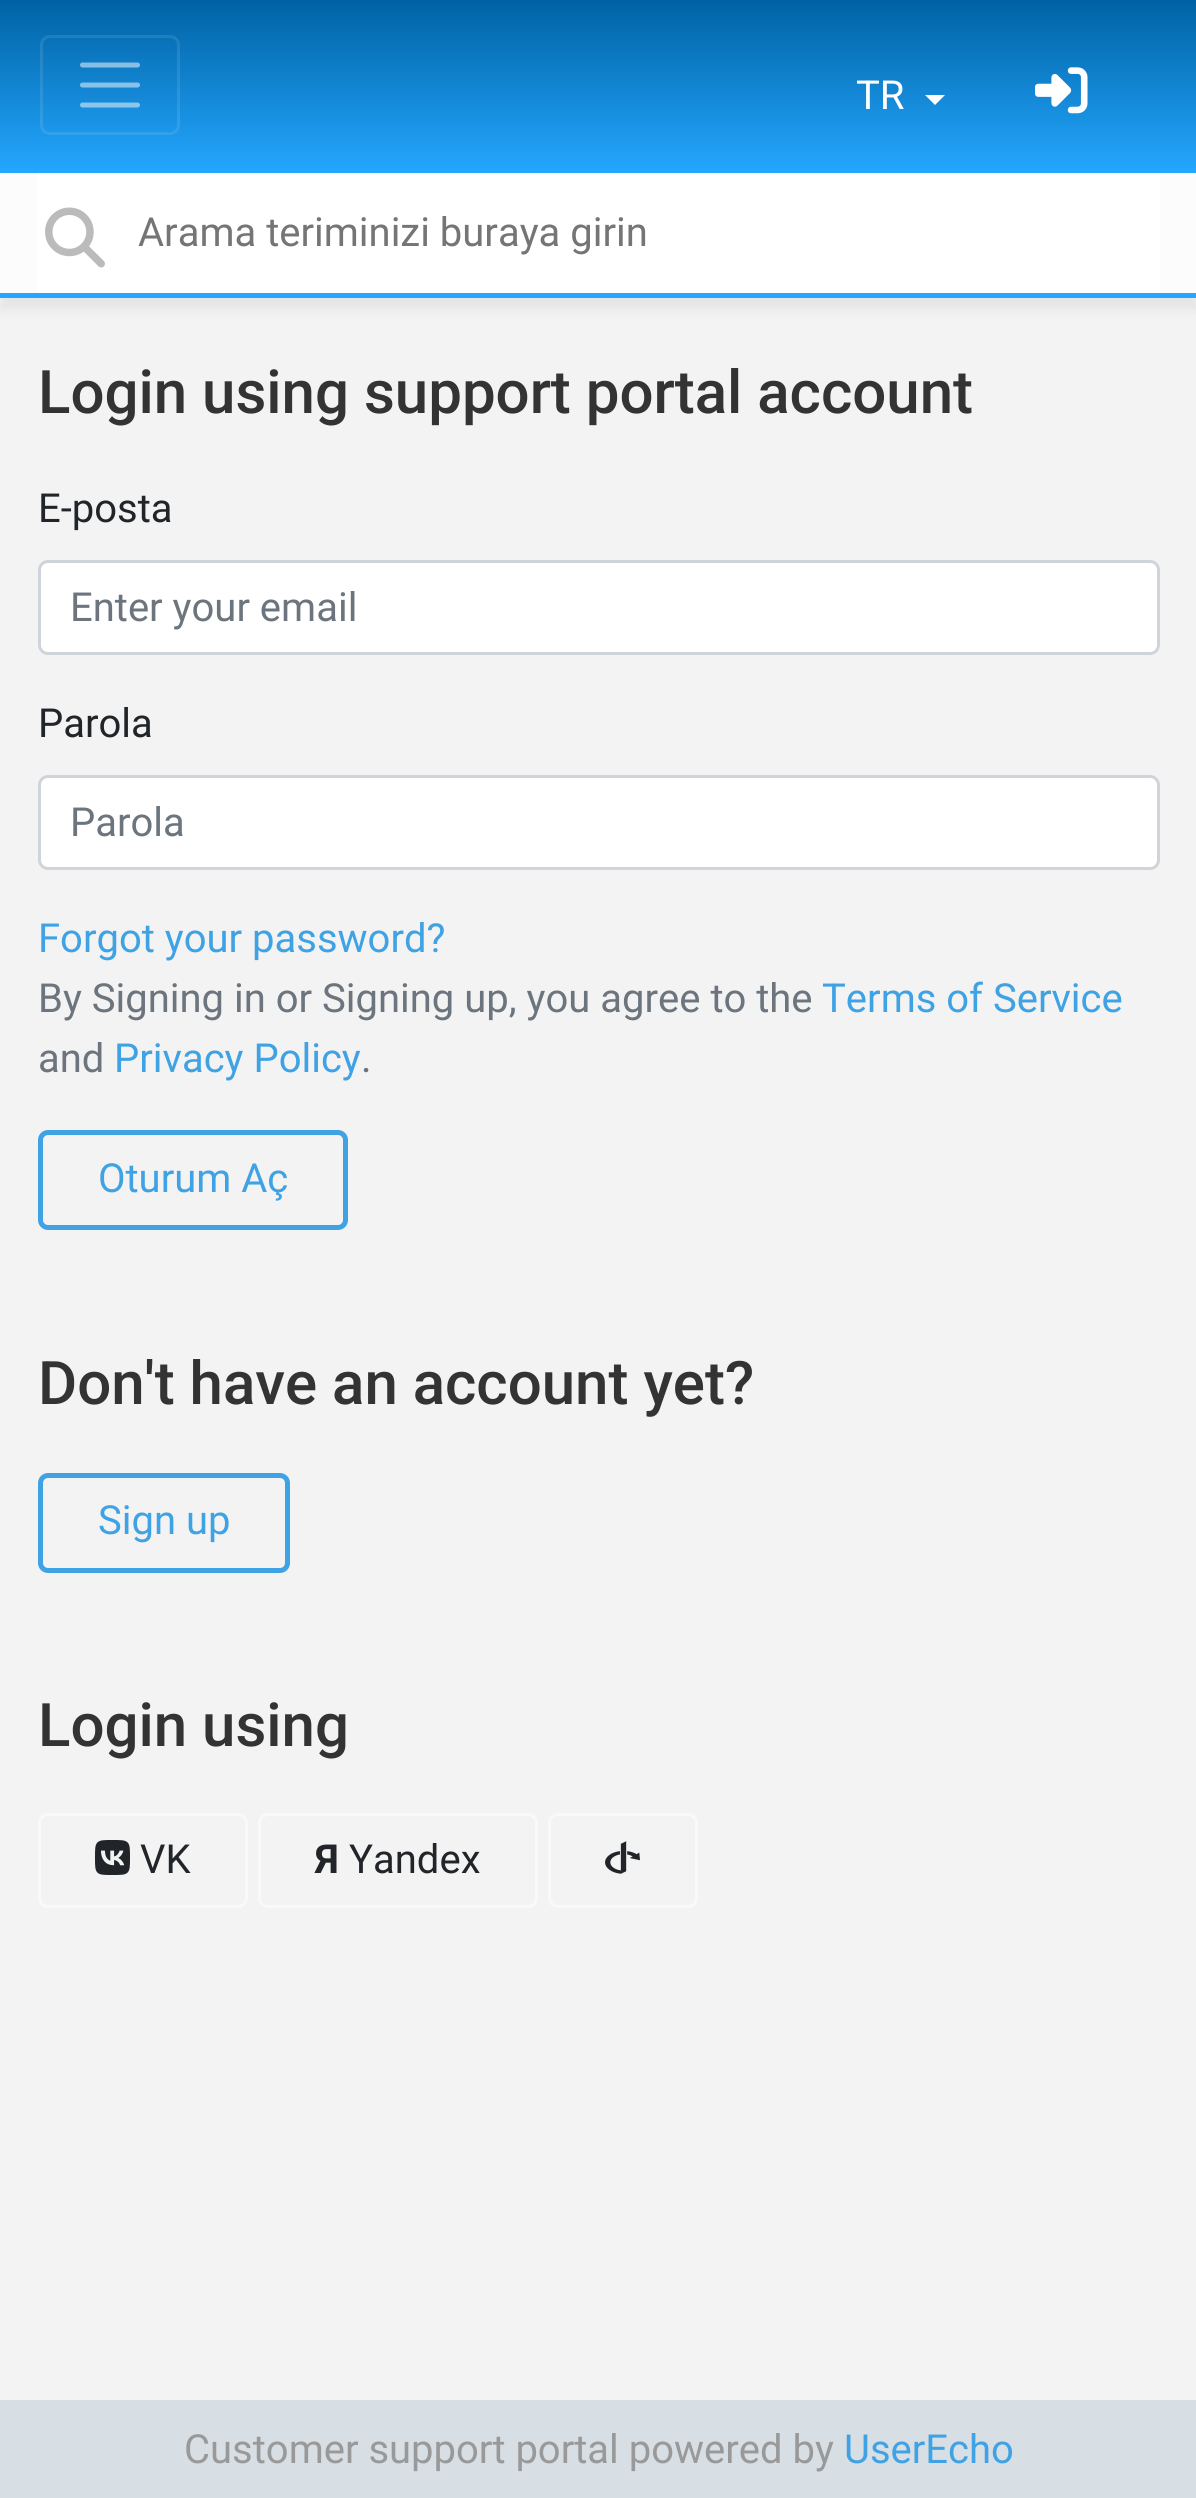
import math
import cairo

surface = cairo.ImageSurface(cairo.FORMAT_RGB24, 1196, 2498)
ctx = cairo.Context(surface)
options = cairo.FontOptions()
options.set_hint_metrics(cairo.HINT_METRICS_OFF)
options.set_hint_style(cairo.HINT_STYLE_NONE)
ctx.set_font_options(options)
ctx.set_miter_limit(4)


def set_color(code):
    ctx.set_source_rgb(*(v / 255 for v in bytes.fromhex(code[-6:])))


def draw_text(x, y, s, family, size, color, bold=False, italic=False):
    ctx.select_font_face(family, cairo.FONT_SLANT_ITALIC if italic else cairo.FONT_SLANT_NORMAL, cairo.FONT_WEIGHT_BOLD if bold else cairo.FONT_WEIGHT_NORMAL)
    ctx.set_font_size(size)
    set_color(color)
    ctx.move_to(x, y)
    ctx.show_text(s)


def fill_rect(x, y, w, h, color):
    set_color(color)
    ctx.rectangle(x, y, w, h)
    ctx.fill()


def rounded_rect(x, y, w, h, r):
    ctx.new_sub_path()
    for i, (u, v) in enumerate([(x + w - r, y + h - r), (x + r, y + h - r), (x + r, y + r), (x + w - r, y + r)]):
        ctx.arc(u, v, r, i * math.pi / 2, (i + 1) * math.pi / 2)
    ctx.close_path()


def draw_shadow(x, y, w, h, r, blur, alpha):
    ctx.push_group_with_content(cairo.CONTENT_ALPHA)
    ctx.set_operator(cairo.OPERATOR_SOURCE)
    for i in range(15, -16, -2):
        e = blur * i / 6
        if min(w, h) + 2 * e > 0:
            ctx.set_source_rgba(0, 0, 0, alpha * math.erfc((i - 1) / 8.5) / 2)
            rounded_rect(x - e, y - e, w + 2 * e, h + 2 * e, max(0, min(r + e + blur * .6, min(w, h) / 2 + e)))
            ctx.fill()
    ctx.mask(ctx.pop_group())


def draw_image(path, x, y, w, h):
    ctx.save()
    ctx.set_source_surface(cairo.ImageSurface.create_from_png(path), x, y)
    ctx.rectangle(x, y, w, h)
    ctx.fill()
    ctx.restore()


set_color("#f3f3f3")
ctx.paint()
gradient = cairo.LinearGradient(599, 0, 599, 173)
gradient.add_color_stop_rgba(0, 0, 0.384, 0.643, 1)
gradient.add_color_stop_rgba(1, 0.141, 0.655, 1, 1)
ctx.set_source(gradient)
ctx.rectangle(0, 0, 1196, 173)
ctx.fill()
rounded_rect(41.5, 36.5, 137, 97, 8.5)
ctx.set_source_rgba(1, 1, 1, 0.1)
ctx.set_line_width(3)
ctx.stroke()
ctx.new_path()
ctx.move_to(82.5, 65)
ctx.line_to(137.5, 65)
ctx.move_to(82.5, 85)
ctx.line_to(137.5, 85)
ctx.move_to(82.5, 105)
ctx.line_to(137.5, 105)
ctx.set_source_rgba(1, 1, 1, 0.5)
ctx.set_line_width(5)
ctx.set_line_cap(cairo.LINE_CAP_ROUND)
ctx.stroke()
draw_text(856, 109, "TR", "Roboto", 40, "#ffffff")
ctx.new_path()
ctx.move_to(925, 95)
ctx.line_to(945, 95)
ctx.line_to(935, 105)
ctx.close_path()
ctx.fill()
draw_image("assets/img1.png", 1035, 67, 53, 47)
set_color("#646464")
draw_shadow(0, 185, 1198, 125, 0, 6, 0.1)
fill_rect(0, 173, 1196, 120, "#fcfcfc")
fill_rect(0, 293, 1196, 5, "#24a7ff")
fill_rect(38, 173, 1122, 120, "#ffffff")
draw_image("assets/img2.png", 45, 207, 60, 61)
draw_text(138, 246, "Arama teriminizi buraya girin", "Roboto", 40, "#757575")
draw_text(38, 413, "Login using support portal account", "Roboto Medium", 60, "#333333")
draw_text(38, 522, "E-posta", "Roboto", 40, "#212529")
set_color("#ffffff")
rounded_rect(39.5, 561.5, 1119, 92, 8.5)
ctx.fill_preserve()
set_color("#ced4da")
ctx.set_line_width(3)
ctx.set_line_cap(cairo.LINE_CAP_BUTT)
ctx.stroke()
draw_text(70, 621, "Enter your email", "Roboto", 40, "#6c757d")
draw_text(38, 737, "Parola", "Roboto", 40, "#212529")
set_color("#ffffff")
rounded_rect(39.5, 776.5, 1119, 92, 8.5)
ctx.fill_preserve()
set_color("#ced4da")
ctx.stroke()
draw_text(70, 836, "Parola", "Roboto", 40, "#6c757d")
draw_text(38, 952, "Forgot your password?", "Roboto", 40, "#3fa2e4")
draw_text(38, 1012, "By Signing in or Signing up, you agree to the", "Roboto", 40, "#6c757d")
draw_text(822, 1012, "Terms of Service", "Roboto", 40, "#3fa2e4")
draw_text(38, 1072, "and", "Roboto", 40, "#6c757d")
draw_text(114, 1072, "Privacy Policy", "Roboto", 40, "#3fa2e4")
draw_text(361, 1072, ".", "Roboto", 40, "#6c757d")
rounded_rect(40.5, 1132.5, 305, 95, 7.5)
set_color("#3fa2e4")
ctx.set_line_width(5)
ctx.stroke()
draw_text(98, 1192, "Oturum Aç", "Roboto", 40, "#3fa2e4")
draw_text(38, 1404, "Don't have an account yet?", "Roboto Medium", 60, "#333333")
rounded_rect(40.5, 1475.5, 247, 95, 7.5)
set_color("#3fa2e4")
ctx.stroke()
draw_text(98, 1534, "Sign up", "Roboto", 40, "#3fa2e4")
draw_text(38, 1746, "Login using", "Roboto Medium", 60, "#333333")
rounded_rect(39.5, 1814.5, 207, 92, 8.5)
set_color("#f8f9fa")
ctx.set_line_width(3)
ctx.stroke()
draw_image("assets/img3.png", 95, 1840, 35, 35)
draw_text(140, 1873, "VK", "Roboto", 40, "#212529")
rounded_rect(259.5, 1814.5, 277, 92, 8.5)
set_color("#f8f9fa")
ctx.stroke()
draw_text(315, 1873, "Я", "Roboto", 40, "#212529", bold=True)
draw_text(349, 1873, "Yandex", "Roboto", 40, "#212529")
rounded_rect(549.5, 1814.5, 147, 92, 8.5)
set_color("#f8f9fa")
ctx.stroke()
draw_image("assets/img4.png", 605, 1841, 35, 33)
fill_rect(0, 2400, 1196, 98, "#d7dfe5")
draw_text(184, 2463, "Customer support portal powered by", "Roboto", 40, "#999999")
draw_text(844, 2463, "UserEcho", "Roboto", 40, "#3fa2e4")
surface.write_to_png("output.png")
